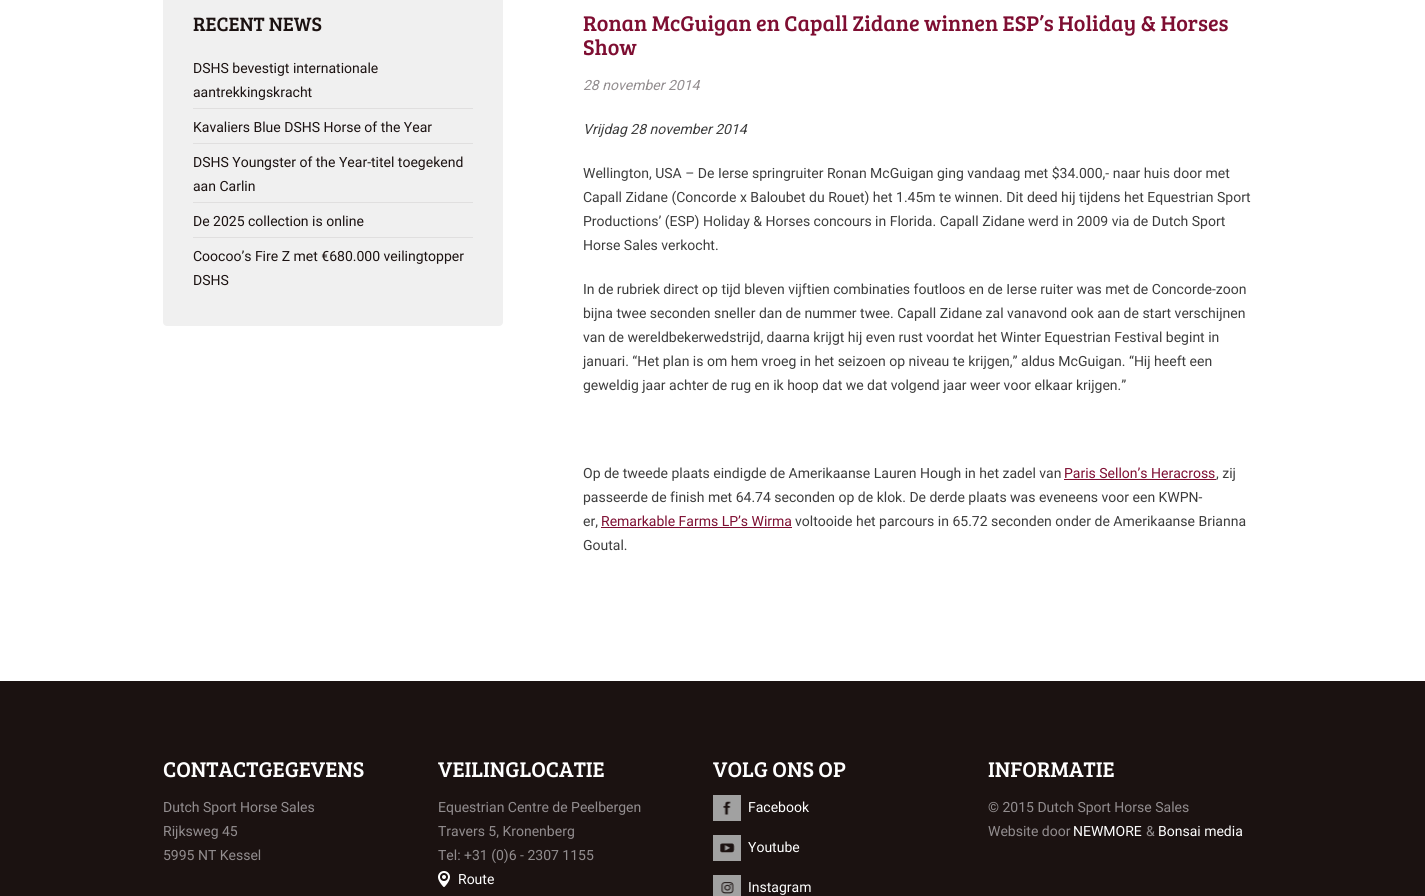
import math
import cairo

surface = cairo.ImageSurface(cairo.FORMAT_RGB24, 1425, 896)
ctx = cairo.Context(surface)
options = cairo.FontOptions()
options.set_hint_metrics(cairo.HINT_METRICS_OFF)
options.set_hint_style(cairo.HINT_STYLE_NONE)
ctx.set_font_options(options)
ctx.set_miter_limit(4)


def set_color(code):
    ctx.set_source_rgb(*(v / 255 for v in bytes.fromhex(code[-6:])))


def draw_text(x, y, s, family, size, color, bold=False, italic=False):
    ctx.select_font_face(family, cairo.FONT_SLANT_ITALIC if italic else cairo.FONT_SLANT_NORMAL, cairo.FONT_WEIGHT_BOLD if bold else cairo.FONT_WEIGHT_NORMAL)
    ctx.set_font_size(size)
    set_color(color)
    ctx.move_to(x, y)
    ctx.show_text(s)


def fill_rect(x, y, w, h, color):
    set_color(color)
    ctx.rectangle(x, y, w, h)
    ctx.fill()


def rounded_rect(x, y, w, h, r):
    ctx.new_sub_path()
    for i, (u, v) in enumerate([(x + w - r, y + h - r), (x + r, y + h - r), (x + r, y + r), (x + w - r, y + r)]):
        ctx.arc(u, v, r, i * math.pi / 2, (i + 1) * math.pi / 2)
    ctx.close_path()


def draw_image(path, x, y, w, h):
    ctx.save()
    ctx.set_source_surface(cairo.ImageSurface.create_from_png(path), x, y)
    ctx.rectangle(x, y, w, h)
    ctx.fill()
    ctx.restore()


set_color("#ffffff")
ctx.paint()
set_color("#f0f0f0")
rounded_rect(163, -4, 340, 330, 4)
ctx.fill()
draw_text(193, 31, "RECENT NEWS", "Bree Serif", 20, "#1b1211")
fill_rect(193, 108, 280, 1, "#e0dfdf")
draw_text(193, 73, "DSHS bevestigt internationale", "Roboto", 14, "#1b1211")
draw_text(193, 97, "aantrekkingskracht", "Roboto", 14, "#1b1211")
fill_rect(193, 143, 280, 1, "#e0dfdf")
draw_text(193, 132, "Kavaliers Blue DSHS Horse of the Year", "Roboto", 14, "#1b1211")
fill_rect(193, 202, 280, 1, "#e0dfdf")
draw_text(193, 167, "DSHS Youngster of the Year-titel toegekend", "Roboto", 14, "#1b1211")
draw_text(193, 191, "aan Carlin", "Roboto", 14, "#1b1211")
fill_rect(193, 237, 280, 1, "#e0dfdf")
draw_text(193, 226, "De 2025 collection is online", "Roboto", 14, "#1b1211")
draw_text(193, 261, "Coocoo’s Fire Z met €680.000 veilingtopper", "Roboto", 14, "#1b1211")
draw_text(193, 285, "DSHS", "Roboto", 14, "#1b1211")
draw_text(583, 31, "Ronan McGuigan en Capall Zidane winnen ESP’s Holiday & Horses", "Bree Serif", 22, "#7e0e32")
draw_text(583, 55, "Show", "Bree Serif", 22, "#7e0e32")
draw_text(583, 90, "28 november 2014", "Roboto", 14, "#928d8f", italic=True)
draw_text(583, 134, "Vrijdag 28 november 2014", "Roboto", 14, "#3d3d3d", italic=True)
draw_text(583, 178, "Wellington, USA – De Ierse springruiter Ronan McGuigan ging vandaag met $34.000,- naar huis door met", "Roboto", 14, "#3d3d3d")
draw_text(583, 202, "Capall Zidane (Concorde x Baloubet du Rouet) het 1.45m te winnen. Dit deed hij tijdens het Equestrian Sport", "Roboto", 14, "#3d3d3d")
draw_text(583, 226, "Productions’ (ESP) Holiday & Horses concours in Florida. Capall Zidane werd in 2009 via de Dutch Sport", "Roboto", 14, "#3d3d3d")
draw_text(583, 250, "Horse Sales verkocht.", "Roboto", 14, "#3d3d3d")
draw_text(583, 294, "In de rubriek direct op tijd bleven vijftien combinaties foutloos en de Ierse ruiter was met de Concorde-zoon", "Roboto", 14, "#3d3d3d")
draw_text(583, 318, "bijna twee seconden sneller dan de nummer twee. Capall Zidane zal vanavond ook aan de start verschijnen", "Roboto", 14, "#3d3d3d")
draw_text(583, 342, "van de wereldbekerwedstrijd, daarna krijgt hij even rust voordat het Winter Equestrian Festival begint in", "Roboto", 14, "#3d3d3d")
draw_text(583, 366, "januari. “Het plan is om hem vroeg in het seizoen op niveau te krijgen,” aldus McGuigan. “Hij heeft een", "Roboto", 14, "#3d3d3d")
draw_text(583, 390, "geweldig jaar achter de rug en ik hoop dat we dat volgend jaar weer voor elkaar krijgen.”", "Roboto", 14, "#3d3d3d")
draw_text(583, 478, "Op de tweede plaats eindigde de Amerikaanse Lauren Hough in het zadel van", "Roboto", 14, "#3d3d3d")
draw_text(1064, 478, "Paris Sellon’s Heracross", "Roboto", 14, "#7e0e32")
fill_rect(1064, 479, 152, 1, "#7e0e32")
draw_text(1216, 478, ", zij", "Roboto", 14, "#3d3d3d")
draw_text(583, 502, "passeerde de finish met 64.74 seconden op de klok. De derde plaats was eveneens voor een KWPN-", "Roboto", 14, "#3d3d3d")
draw_text(583, 526, "er,", "Roboto", 14, "#3d3d3d")
draw_text(601, 526, "Remarkable Farms LP’s Wirma", "Roboto", 14, "#7e0e32")
fill_rect(601, 527, 191, 1, "#7e0e32")
draw_text(795, 526, "voltooide het parcours in 65.72 seconden onder de Amerikaanse Brianna", "Roboto", 14, "#3d3d3d")
draw_text(583, 550, "Goutal.", "Roboto", 14, "#3d3d3d")
fill_rect(0, 681, 1425, 215, "#1b1211")
draw_text(163, 777, "CONTACTGEGEVENS", "Bree Serif", 22, "#ffffff")
draw_text(163, 812, "Dutch Sport Horse Sales", "Roboto", 14, "#928d8f")
draw_text(163, 836, "Rijksweg 45", "Roboto", 14, "#928d8f")
draw_text(163, 860, "5995 NT Kessel", "Roboto", 14, "#928d8f")
draw_text(438, 777, "VEILINGLOCATIE", "Bree Serif", 22, "#ffffff")
draw_text(438, 812, "Equestrian Centre de Peelbergen", "Roboto", 14, "#928d8f")
draw_text(438, 836, "Travers 5, Kronenberg", "Roboto", 14, "#928d8f")
draw_text(438, 860, "Tel: +31 (0)6 - 2307 1155", "Roboto", 14, "#928d8f")
draw_image("assets/img1.png", 438, 871, 12, 16)
draw_text(458, 884, "Route", "Roboto", 14, "#ffffff")
draw_text(713, 777, "VOLG ONS OP", "Bree Serif", 22, "#ffffff")
draw_image("assets/img2.png", 713, 795, 28, 26)
draw_text(748, 812, "Facebook", "Roboto", 14, "#ffffff")
draw_image("assets/img3.png", 713, 835, 28, 26)
draw_text(748, 852, "Youtube", "Roboto", 14, "#ffffff")
draw_image("assets/img4.png", 713, 875, 28, 21)
draw_text(748, 892, "Instagram", "Roboto", 14, "#ffffff")
draw_text(988, 777, "INFORMATIE", "Bree Serif", 22, "#ffffff")
draw_text(988, 812, "© 2015 Dutch Sport Horse Sales", "Roboto", 14, "#928d8f")
draw_text(988, 836, "Website door", "Roboto", 14, "#928d8f")
draw_text(1073, 836, "NEWMORE", "Roboto", 14, "#ffffff")
draw_text(1146, 836, "&", "Roboto", 14, "#928d8f")
draw_text(1158, 836, "Bonsai media", "Roboto", 14, "#ffffff")
surface.write_to_png("output.png")
